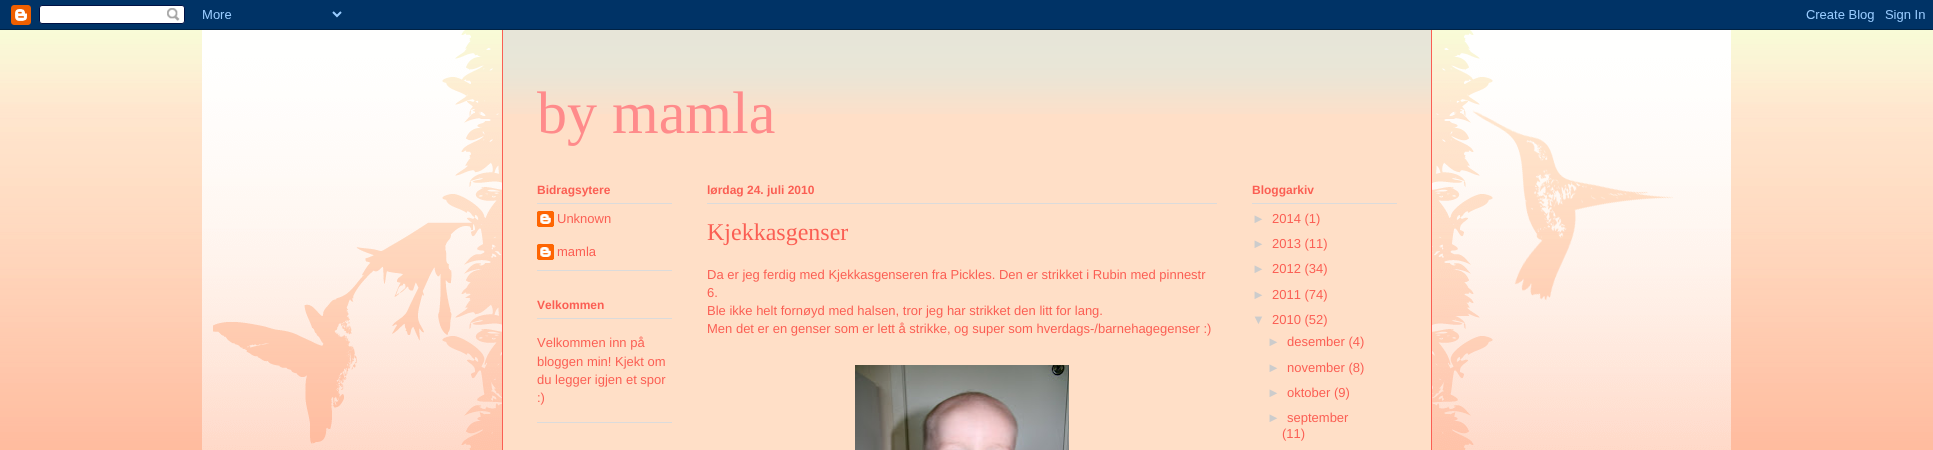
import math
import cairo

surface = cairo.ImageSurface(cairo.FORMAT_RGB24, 1933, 450)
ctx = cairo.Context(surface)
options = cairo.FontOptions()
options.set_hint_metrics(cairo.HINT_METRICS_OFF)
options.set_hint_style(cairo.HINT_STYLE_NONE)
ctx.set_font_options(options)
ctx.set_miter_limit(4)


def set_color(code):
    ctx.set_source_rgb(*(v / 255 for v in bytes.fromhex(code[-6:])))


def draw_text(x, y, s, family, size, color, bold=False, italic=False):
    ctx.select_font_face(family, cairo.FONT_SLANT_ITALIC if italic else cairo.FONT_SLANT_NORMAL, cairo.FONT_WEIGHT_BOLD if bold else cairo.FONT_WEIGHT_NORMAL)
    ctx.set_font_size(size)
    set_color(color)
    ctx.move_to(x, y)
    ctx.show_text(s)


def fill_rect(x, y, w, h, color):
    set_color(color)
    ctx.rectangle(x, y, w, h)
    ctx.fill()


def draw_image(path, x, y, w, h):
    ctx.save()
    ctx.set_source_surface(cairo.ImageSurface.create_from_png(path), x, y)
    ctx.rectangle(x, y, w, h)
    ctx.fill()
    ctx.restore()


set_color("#ffffff")
ctx.paint()
draw_image("assets/img1.png", 0, 30, 1933, 420)
draw_image("assets/img2.png", 0, 0, 1933, 30)
draw_image("assets/img3.png", 202, 30, 300, 420)
fill_rect(503, 30, 928, 420, "#ffdfc7")
draw_image("assets/img4.png", 503, 30, 928, 84)
fill_rect(1431, 30, 1, 420, "#fb5e53")
fill_rect(502, 30, 1, 420, "#fb5e53")
draw_image("assets/img5.png", 1432, 30, 299, 420)
draw_text(537, 133, "by mamla", "Liberation Serif", 60, "#ff8b8b")
fill_rect(537, 270, 135, 1, "#dbdbdb")
fill_rect(537, 203, 135, 1, "#dbdbdb")
draw_text(537, 194, "Bidragsytere", "Liberation Sans", 12, "#fb5e53", bold=True)
draw_image("assets/img6.png", 537, 211, 17, 16)
draw_text(557, 223, "Unknown", "Liberation Sans", 13, "#fb5e53")
draw_image("assets/img6.png", 537, 244, 17, 16)
draw_text(557, 256, "mamla", "Liberation Sans", 13, "#fb5e53")
fill_rect(537, 422, 135, 1, "#dbdbdb")
fill_rect(537, 318, 135, 1, "#dbdbdb")
draw_text(537, 309, "Velkommen", "Liberation Sans", 12, "#fb5e53", bold=True)
draw_text(537, 347, "Velkommen inn på", "Liberation Sans", 13, "#fb5e53")
draw_text(537, 366, "bloggen min! Kjekt om", "Liberation Sans", 13, "#fb5e53")
draw_text(537, 384, "du legger igjen et spor", "Liberation Sans", 13, "#fb5e53")
draw_text(537, 402, ":)", "Liberation Sans", 13, "#fb5e53")
fill_rect(707, 203, 510, 1, "#dbdbdb")
draw_text(707, 194, "lørdag 24. juli 2010", "Liberation Sans", 12, "#fb5e53", bold=True)
draw_text(707, 240, "Kjekkasgenser", "Liberation Serif", 24, "#fb5e53")
draw_text(707, 279, "Da er jeg ferdig med Kjekkasgenseren fra Pickles. Den er strikket i Rubin med pinnestr", "Liberation Sans", 13, "#fb5e53")
draw_text(707, 297, "6.", "Liberation Sans", 13, "#fb5e53")
draw_text(707, 315, "Ble ikke helt fornøyd med halsen, tror jeg har strikket den litt for lang.", "Liberation Sans", 13, "#fb5e53")
draw_text(707, 333, "Men det er en genser som er lett å strikke, og super som hverdags-/barnehagegenser :)", "Liberation Sans", 13, "#fb5e53")
draw_image("assets/img7.png", 855, 365, 214, 85)
fill_rect(1252, 203, 145, 1, "#dbdbdb")
draw_text(1252, 194, "Bloggarkiv", "Liberation Sans", 12, "#fb5e53", bold=True)
draw_text(1252, 223, "►", "Liberation Sans", 13, "#cccccc")
draw_text(1272, 223, "2014 (1)", "Liberation Sans", 13, "#fb5e53")
draw_text(1252, 248, "►", "Liberation Sans", 13, "#cccccc")
draw_text(1272, 248, "2013 (11)", "Liberation Sans", 13, "#fb5e53")
draw_text(1252, 273, "►", "Liberation Sans", 13, "#cccccc")
draw_text(1272, 273, "2012 (34)", "Liberation Sans", 13, "#fb5e53")
draw_text(1252, 299, "►", "Liberation Sans", 13, "#cccccc")
draw_text(1272, 299, "2011 (74)", "Liberation Sans", 13, "#fb5e53")
draw_text(1252, 324, "▼", "Liberation Sans", 13, "#cccccc")
draw_text(1272, 324, "2010 (52)", "Liberation Sans", 13, "#fb5e53")
draw_text(1267, 346, "►", "Liberation Sans", 13, "#cccccc")
draw_text(1287, 346, "desember (4)", "Liberation Sans", 13, "#fb5e53")
draw_text(1267, 372, "►", "Liberation Sans", 13, "#cccccc")
draw_text(1287, 372, "november (8)", "Liberation Sans", 13, "#fb5e53")
draw_text(1267, 397, "►", "Liberation Sans", 13, "#cccccc")
draw_text(1287, 397, "oktober (9)", "Liberation Sans", 13, "#fb5e53")
draw_text(1267, 422, "►", "Liberation Sans", 13, "#cccccc")
draw_text(1287, 422, "september", "Liberation Sans", 13, "#fb5e53")
draw_text(1282, 438, "(11)", "Liberation Sans", 13, "#fb5e53")
surface.write_to_png("output.png")
